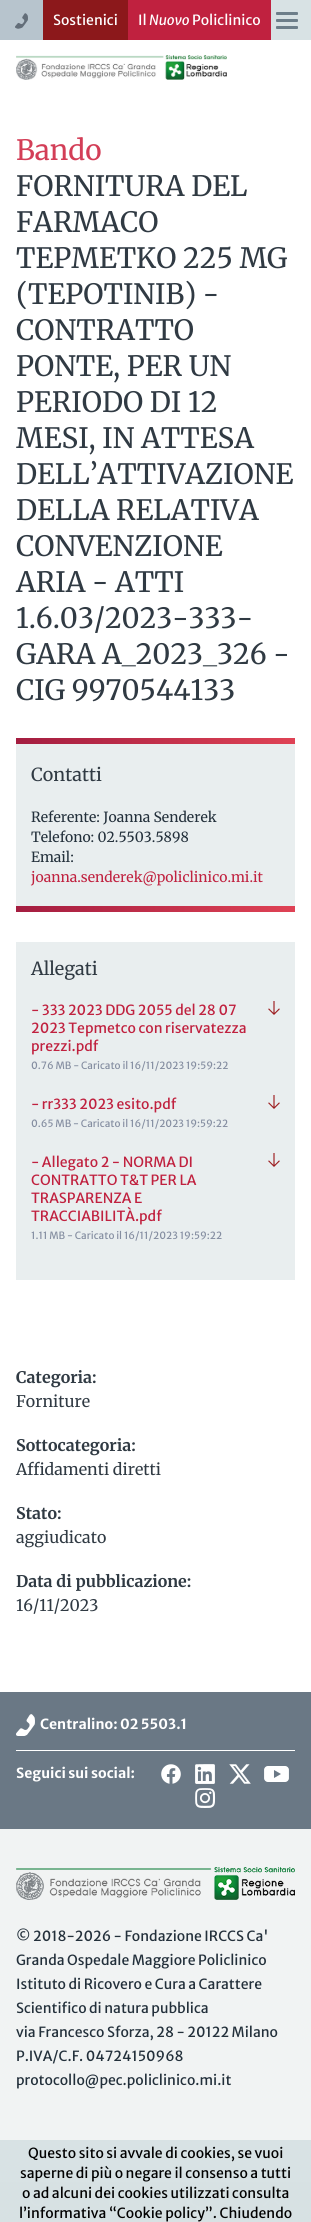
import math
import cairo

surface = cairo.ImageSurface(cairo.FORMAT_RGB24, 311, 2222)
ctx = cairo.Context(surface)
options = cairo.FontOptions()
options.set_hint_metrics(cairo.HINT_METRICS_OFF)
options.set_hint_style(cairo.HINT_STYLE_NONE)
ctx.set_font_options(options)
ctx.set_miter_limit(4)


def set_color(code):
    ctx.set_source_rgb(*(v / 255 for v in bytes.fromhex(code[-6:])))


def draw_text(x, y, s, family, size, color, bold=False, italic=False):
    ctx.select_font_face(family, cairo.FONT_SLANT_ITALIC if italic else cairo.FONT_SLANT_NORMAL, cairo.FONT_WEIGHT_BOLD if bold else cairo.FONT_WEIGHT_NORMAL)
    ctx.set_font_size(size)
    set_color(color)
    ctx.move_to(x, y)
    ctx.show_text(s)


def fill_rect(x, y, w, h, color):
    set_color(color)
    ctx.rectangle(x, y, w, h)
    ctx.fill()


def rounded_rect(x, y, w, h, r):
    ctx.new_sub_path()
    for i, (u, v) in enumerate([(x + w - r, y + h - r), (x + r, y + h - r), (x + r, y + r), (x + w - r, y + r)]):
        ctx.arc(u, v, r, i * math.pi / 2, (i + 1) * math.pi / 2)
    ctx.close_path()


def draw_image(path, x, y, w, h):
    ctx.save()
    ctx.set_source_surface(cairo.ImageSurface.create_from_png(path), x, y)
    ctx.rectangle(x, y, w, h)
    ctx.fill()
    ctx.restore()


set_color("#ffffff")
ctx.paint()
fill_rect(271, 0, 40, 40, "#d8e2e4")
fill_rect(0, 0, 43, 40, "#b7c4cd")
draw_image("assets/img1.png", 15, 13, 13, 16)
fill_rect(43, 0, 85, 40, "#8c181b")
draw_text(53, 25, "Sostienici", "Merriweather Sans", 14, "#ffffff")
fill_rect(128, 0, 143, 40, "#c0213f")
draw_text(138, 25, "Il", "Merriweather Sans", 14, "#ffffff")
draw_text(149, 25, "Nuovo", "Merriweather Sans", 14, "#ffffff", italic=True)
draw_text(192, 25, "Policlinico", "Merriweather Sans", 14, "#ffffff")
set_color("#6d7e89")
rounded_rect(276, 12, 22, 3, 1)
ctx.fill()
rounded_rect(276, 19, 22, 3, 1)
ctx.fill()
rounded_rect(276, 26, 22, 3, 1)
ctx.fill()
draw_image("assets/img2.png", 16, 55, 211, 25)
draw_text(16, 160, "Bando", "Merriweather Light", 28, "#d33e57")
draw_text(16, 196, "FORNITURA DEL", "Merriweather Light", 28, "#303a43")
draw_text(16, 232, "FARMACO", "Merriweather Light", 28, "#303a43")
draw_text(16, 268, "TEPMETKO 225 MG", "Merriweather Light", 28, "#303a43")
draw_text(16, 304, "(TEPOTINIB) -", "Merriweather Light", 28, "#303a43")
draw_text(16, 340, "CONTRATTO", "Merriweather Light", 28, "#303a43")
draw_text(16, 376, "PONTE, PER UN", "Merriweather Light", 28, "#303a43")
draw_text(16, 412, "PERIODO DI 12", "Merriweather Light", 28, "#303a43")
draw_text(16, 448, "MESI, IN ATTESA", "Merriweather Light", 28, "#303a43")
draw_text(16, 484, "DELL’ATTIVAZIONE", "Merriweather Light", 28, "#303a43")
draw_text(16, 520, "DELLA RELATIVA", "Merriweather Light", 28, "#303a43")
draw_text(16, 556, "CONVENZIONE", "Merriweather Light", 28, "#303a43")
draw_text(16, 592, "ARIA - ATTI", "Merriweather Light", 28, "#303a43")
draw_text(16, 628, "1.6.03/2023-333-", "Merriweather Light", 28, "#303a43")
draw_text(16, 664, "GARA A_2023_326 -", "Merriweather Light", 28, "#303a43")
draw_text(16, 700, "CIG 9970544133", "Merriweather Light", 28, "#303a43")
fill_rect(16, 744, 279, 162, "#e9eeef")
gradient = cairo.LinearGradient(16, 741, 295, 741)
gradient.add_color_stop_rgba(0, 0.643, 0.114, 0.251, 1)
gradient.add_color_stop_rgba(1, 0.875, 0.259, 0.333, 1)
ctx.set_source(gradient)
ctx.rectangle(16, 738, 279, 6)
ctx.fill()
draw_text(31, 781, "Contatti", "Merriweather Light", 18, "#303a43")
draw_text(31, 822, "Referente: Joanna Senderek", "Merriweather Light", 14, "#23303b")
draw_text(31, 842, "Telefono: 02.5503.5898", "Merriweather Light", 14, "#23303b")
draw_text(31, 862, "Email:", "Merriweather Light", 14, "#23303b")
draw_text(31, 882, "joanna.senderek@policlinico.mi.it", "Merriweather Light", 14, "#c0213f")
gradient = cairo.LinearGradient(16, 909, 295, 909)
gradient.add_color_stop_rgba(0, 0.643, 0.114, 0.251, 1)
gradient.add_color_stop_rgba(1, 0.875, 0.259, 0.333, 1)
ctx.set_source(gradient)
ctx.rectangle(16, 906, 279, 6)
ctx.fill()
fill_rect(16, 942, 279, 338, "#e9eeef")
draw_text(31, 975, "Allegati", "Merriweather Light", 18, "#303a43")
draw_image("assets/img3.png", 268, 1001, 12, 14)
draw_text(31, 1015, "- 333 2023 DDG 2055 del 28 07", "Merriweather Sans", 14, "#c0213f")
draw_text(31, 1033, "2023 Tepmetco con riservatezza", "Merriweather Sans", 14, "#c0213f")
draw_text(31, 1051, "prezzi.pdf", "Merriweather Sans", 14, "#c0213f")
draw_text(31, 1069, "0.76 MB - Caricato il 16/11/2023 19:59:22", "Merriweather Sans", 10, "#858ea1")
draw_image("assets/img3.png", 268, 1095, 12, 14)
draw_text(31, 1109, "- rr333 2023 esito.pdf", "Merriweather Sans", 14, "#c0213f")
draw_text(31, 1127, "0.65 MB - Caricato il 16/11/2023 19:59:22", "Merriweather Sans", 10, "#858ea1")
draw_image("assets/img3.png", 268, 1153, 12, 14)
draw_text(31, 1167, "- Allegato 2 - NORMA DI", "Merriweather Sans", 14, "#c0213f")
draw_text(31, 1185, "CONTRATTO T&T PER LA", "Merriweather Sans", 14, "#c0213f")
draw_text(31, 1203, "TRASPARENZA E", "Merriweather Sans", 14, "#c0213f")
draw_text(31, 1221, "TRACCIABILITÀ.pdf", "Merriweather Sans", 14, "#c0213f")
draw_text(31, 1239, "1.11 MB - Caricato il 16/11/2023 19:59:22", "Merriweather Sans", 10, "#858ea1")
draw_text(16, 1383, "Categoria:", "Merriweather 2 Light", 16, "#303a43")
draw_text(16, 1407, "Forniture", "Merriweather Light", 16, "#303a43")
draw_text(16, 1451, "Sottocategoria:", "Merriweather 2 Light", 16, "#303a43")
draw_text(16, 1475, "Affidamenti diretti", "Merriweather Light", 16, "#303a43")
draw_text(16, 1519, "Stato:", "Merriweather 2 Light", 16, "#303a43")
draw_text(16, 1543, "aggiudicato", "Merriweather Light", 16, "#303a43")
draw_text(16, 1587, "Data di pubblicazione:", "Merriweather 2 Light", 16, "#303a43")
draw_text(16, 1611, "16/11/2023", "Merriweather Light", 16, "#303a43")
fill_rect(0, 1829, 311, 311, "#f1f3f3")
fill_rect(0, 2140, 311, 42, "#d8e2e4")
fill_rect(0, 1692, 311, 137, "#6a7885")
fill_rect(16, 1750, 279, 1, "#ffffff")
draw_image("assets/img4.png", 16, 1714, 19, 22)
draw_text(40, 1729, "Centralino: 02 5503.1", "Merriweather Sans", 14, "#ffffff", bold=True)
draw_text(16, 1778, "Seguici sui social:", "Merriweather Sans", 14, "#ffffff", bold=True)
draw_image("assets/img5.png", 161, 1764, 20, 20)
draw_image("assets/img6.png", 195, 1764, 20, 20)
draw_image("assets/img7.png", 229, 1764, 22, 20)
draw_image("assets/img8.png", 264, 1766, 25, 16)
draw_image("assets/img9.png", 195, 1788, 21, 20)
draw_image("assets/img10.png", 16, 1867, 279, 33)
draw_text(16, 1941, "© 2018-2026 - Fondazione IRCCS Ca'", "Merriweather Sans", 14, "#23303b")
draw_text(16, 1965, "Granda Ospedale Maggiore Policlinico", "Merriweather Sans", 14, "#23303b")
draw_text(16, 1989, "Istituto di Ricovero e Cura a Carattere", "Merriweather Sans", 14, "#23303b")
draw_text(16, 2013, "Scientifico di natura pubblica", "Merriweather Sans", 14, "#23303b")
draw_text(16, 2037, "via Francesco Sforza, 28 - 20122 Milano", "Merriweather Sans", 14, "#23303b")
draw_text(16, 2061, "P.IVA/C.F. 04724150968", "Merriweather Sans", 14, "#23303b")
draw_text(16, 2085, "protocollo@pec.policlinico.mi.it", "Merriweather Sans", 14, "#23303b")
fill_rect(0, 2182, 311, 40, "#d7e1e3")
draw_image("assets/img11.png", 30, 2192, 18, 18)
draw_image("assets/img12.png", 108, 2194, 18, 16)
draw_image("assets/img13.png", 186, 2193, 16, 18)
draw_image("assets/img14.png", 263, 2196, 18, 10)
draw_text(28, 2158, "Questo sito si avvale di cookies, se vuoi", "Merriweather Sans", 14, "#020202")
draw_text(20, 2178, "saperne di più o negare il consenso a tutti", "Merriweather Sans", 14, "#020202")
draw_text(22, 2198, "o ad alcuni dei cookies utilizzati consulta", "Merriweather Sans", 14, "#020202")
draw_text(19, 2218, "l’informativa “Cookie policy”. Chiudendo", "Merriweather Sans", 14, "#020202")
surface.write_to_png("output.png")
